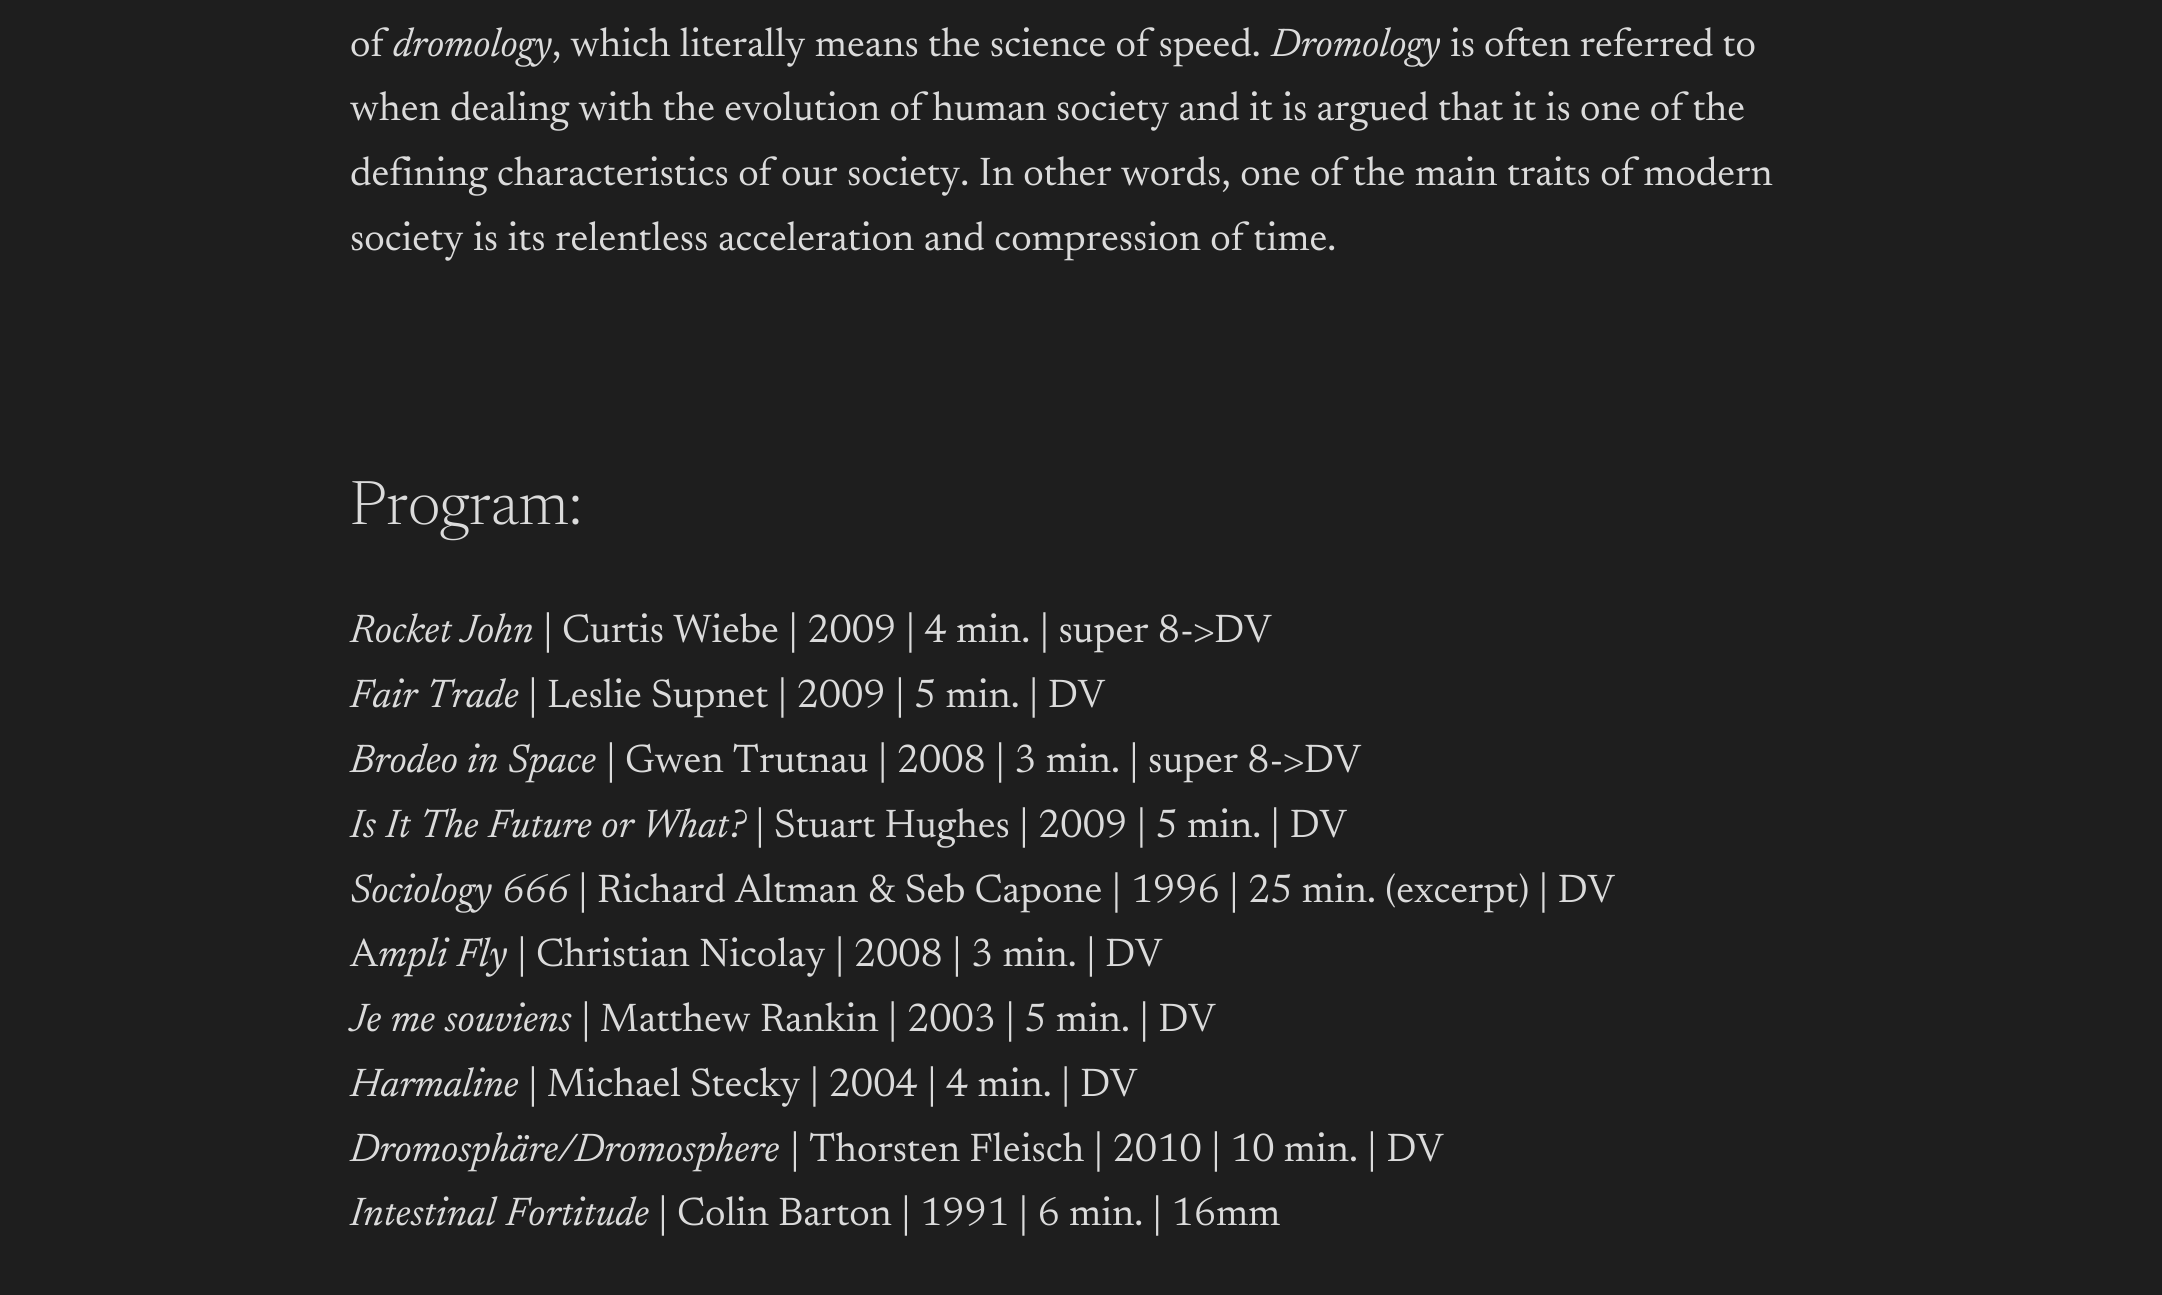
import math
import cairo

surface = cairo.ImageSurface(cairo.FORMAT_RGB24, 2162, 1295)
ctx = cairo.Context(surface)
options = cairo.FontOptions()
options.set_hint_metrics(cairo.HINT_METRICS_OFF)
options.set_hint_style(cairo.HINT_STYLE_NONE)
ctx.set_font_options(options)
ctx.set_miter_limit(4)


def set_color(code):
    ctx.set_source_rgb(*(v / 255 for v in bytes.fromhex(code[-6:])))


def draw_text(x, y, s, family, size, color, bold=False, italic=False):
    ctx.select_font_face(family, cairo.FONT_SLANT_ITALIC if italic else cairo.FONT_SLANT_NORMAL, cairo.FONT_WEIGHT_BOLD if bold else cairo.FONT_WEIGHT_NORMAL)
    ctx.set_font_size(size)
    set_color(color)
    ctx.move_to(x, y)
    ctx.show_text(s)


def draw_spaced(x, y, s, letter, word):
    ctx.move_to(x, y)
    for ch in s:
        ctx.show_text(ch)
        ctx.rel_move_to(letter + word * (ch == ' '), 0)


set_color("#1e1e1e")
ctx.paint()
draw_text(350, 56, "of", "Newsreader", 40.5, "#dbdbdb")
draw_text(393, 56, "dromology", "Newsreader", 40.5, "#dbdbdb", italic=True)
ctx.select_font_face("Newsreader")
draw_spaced(552, 56, ", which literally means the science of speed.", 0, 0.25)
draw_text(1271, 56, "Dromology", "Newsreader", 40.5, "#dbdbdb", italic=True)
draw_text(1450, 56, "is often referred to", "Newsreader", 40.5, "#dbdbdb")
draw_spaced(350, 120, "when dealing with the evolution of human society and it is argued that it is one of the", 0, 0.3)
draw_spaced(350, 185, "defining characteristics of our society. In other words, one of the main traits of modern", 0, 0.4)
draw_spaced(350, 250, "society is its relentless acceleration and compression of time.", 0, 0.5)
draw_text(350, 524, "Program:", "Newsreader Light", 63, "#dbdbdb")
draw_text(350, 642, "Rocket John", "Newsreader", 40.5, "#dbdbdb", italic=True)
ctx.select_font_face("Newsreader")
draw_spaced(543, 642, "| Curtis Wiebe | 2009 | 4 min. | super 8->DV", 0, 0.25)
draw_text(350, 707, "Fair Trade", "Newsreader", 40.5, "#dbdbdb", italic=True)
ctx.select_font_face("Newsreader")
draw_spaced(528, 707, "| Leslie Supnet | 2009 | 5 min. | DV", 0, 0.25)
draw_text(350, 772, "Brodeo in Space", "Newsreader", 40.5, "#dbdbdb", italic=True)
ctx.select_font_face("Newsreader")
draw_spaced(606, 772, "| Gwen Trutnau | 2008 | 3 min. | super 8->DV", 0, 0.25)
ctx.select_font_face("Newsreader", cairo.FONT_SLANT_ITALIC)
draw_spaced(350, 837, "Is It The Future or What?", 0, 0.25)
ctx.select_font_face("Newsreader")
draw_spaced(755, 837, "| Stuart Hughes | 2009 | 5 min. | DV", 0, 0.25)
ctx.select_font_face("Newsreader", cairo.FONT_SLANT_ITALIC)
draw_spaced(350, 902, "Sociology 666", 0, 1)
ctx.select_font_face("Newsreader")
draw_spaced(578, 902, "| Richard Altman & Seb Capone | 1996 | 25 min. (excerpt) | DV", 0, 0.25)
draw_text(350, 966, "A", "Newsreader", 40.5, "#dbdbdb")
draw_text(378, 966, "mpli Fly", "Newsreader", 40.5, "#dbdbdb", italic=True)
ctx.select_font_face("Newsreader")
draw_spaced(517, 966, "| Christian Nicolay | 2008 | 3 min. | DV", 0, 0.25)
ctx.select_font_face("Newsreader", cairo.FONT_SLANT_ITALIC)
draw_spaced(350, 1031, "Je me souviens", 0, 0.25)
ctx.select_font_face("Newsreader")
draw_spaced(581, 1031, "| Matthew Rankin | 2003 | 5 min. | DV", 0, 0.25)
draw_text(350, 1096, "Harmaline", "Newsreader", 40.5, "#dbdbdb", italic=True)
ctx.select_font_face("Newsreader")
draw_spaced(528, 1096, "| Michael Stecky | 2004 | 4 min. | DV", 0, 0.25)
draw_text(350, 1161, "Dromosphäre/Dromosphere", "Newsreader", 40.5, "#dbdbdb", italic=True)
ctx.select_font_face("Newsreader")
draw_spaced(790, 1161, "| Thorsten Fleisch | 2010 | 10 min. | DV", 0, 0.25)
ctx.select_font_face("Newsreader", cairo.FONT_SLANT_ITALIC)
draw_spaced(350, 1225, "Intestinal Fortitude", 0, 1)
ctx.select_font_face("Newsreader")
draw_spaced(658, 1225, "| Colin Barton | 1991 | 6 min. | 16mm", 0, 0.25)
surface.write_to_png("output.png")
